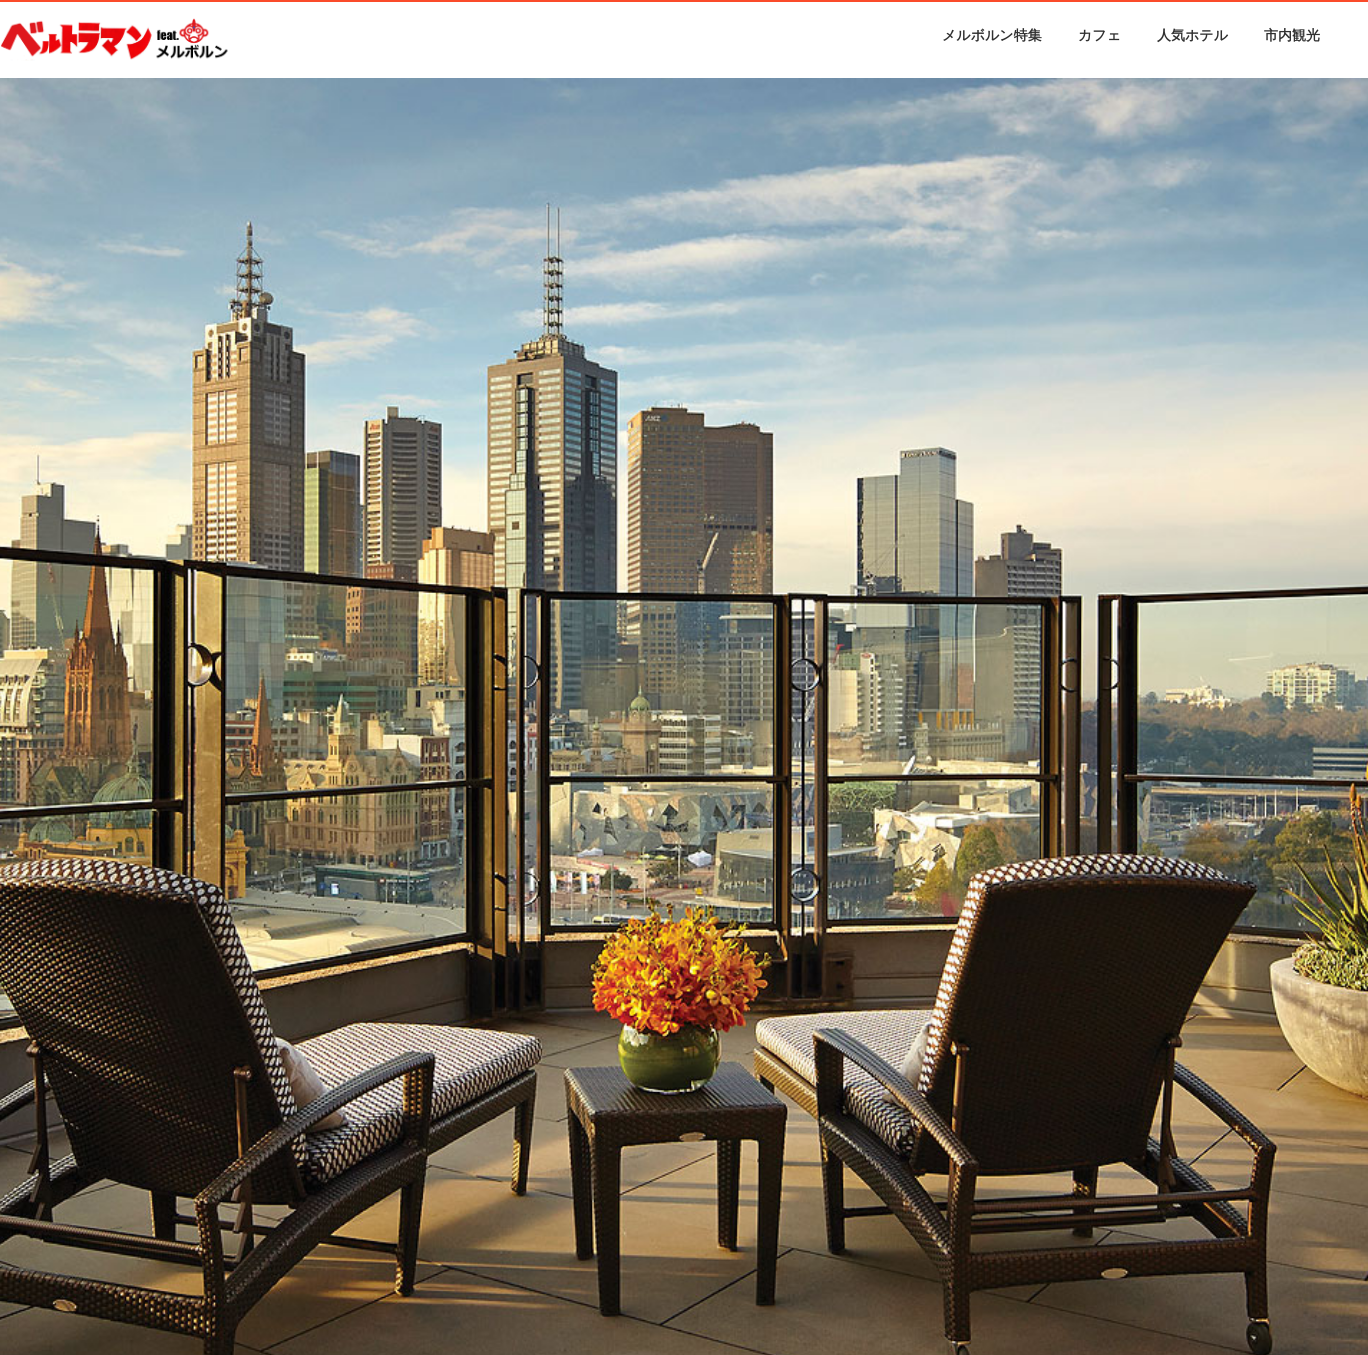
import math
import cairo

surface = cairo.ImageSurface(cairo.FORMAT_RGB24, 1368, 1355)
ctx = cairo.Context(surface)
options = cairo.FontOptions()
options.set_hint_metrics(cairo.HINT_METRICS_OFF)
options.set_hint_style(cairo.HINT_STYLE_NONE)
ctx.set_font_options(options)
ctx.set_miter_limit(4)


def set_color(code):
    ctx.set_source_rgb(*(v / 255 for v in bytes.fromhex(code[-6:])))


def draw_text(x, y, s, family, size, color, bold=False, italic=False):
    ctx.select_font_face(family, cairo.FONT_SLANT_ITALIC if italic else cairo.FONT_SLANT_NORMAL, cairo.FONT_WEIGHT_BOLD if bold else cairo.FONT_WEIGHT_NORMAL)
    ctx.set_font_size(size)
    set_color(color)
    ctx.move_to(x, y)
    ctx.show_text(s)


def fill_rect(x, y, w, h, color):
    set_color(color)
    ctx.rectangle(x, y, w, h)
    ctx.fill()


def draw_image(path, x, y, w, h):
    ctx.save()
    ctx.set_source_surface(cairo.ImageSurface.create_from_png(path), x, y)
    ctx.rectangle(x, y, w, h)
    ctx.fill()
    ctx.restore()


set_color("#ffffff")
ctx.paint()
fill_rect(0, 0, 1368, 2, "#fa4b2a")
draw_image("assets/img1.png", 1, 18, 227, 43)
draw_text(942, 40, "メルボルン特集", "WenQuanYi Zen Hei", 14, "#303030", bold=True)
draw_text(1078, 40, "カフェ", "WenQuanYi Zen Hei", 14, "#303030", bold=True)
draw_text(1157, 40, "人気ホテル", "WenQuanYi Zen Hei", 14, "#303030", bold=True)
draw_text(1264, 40, "市内観光", "WenQuanYi Zen Hei", 14, "#303030", bold=True)
draw_image("assets/img2.png", 0, 78, 1368, 1277)
surface.write_to_png("output.png")
